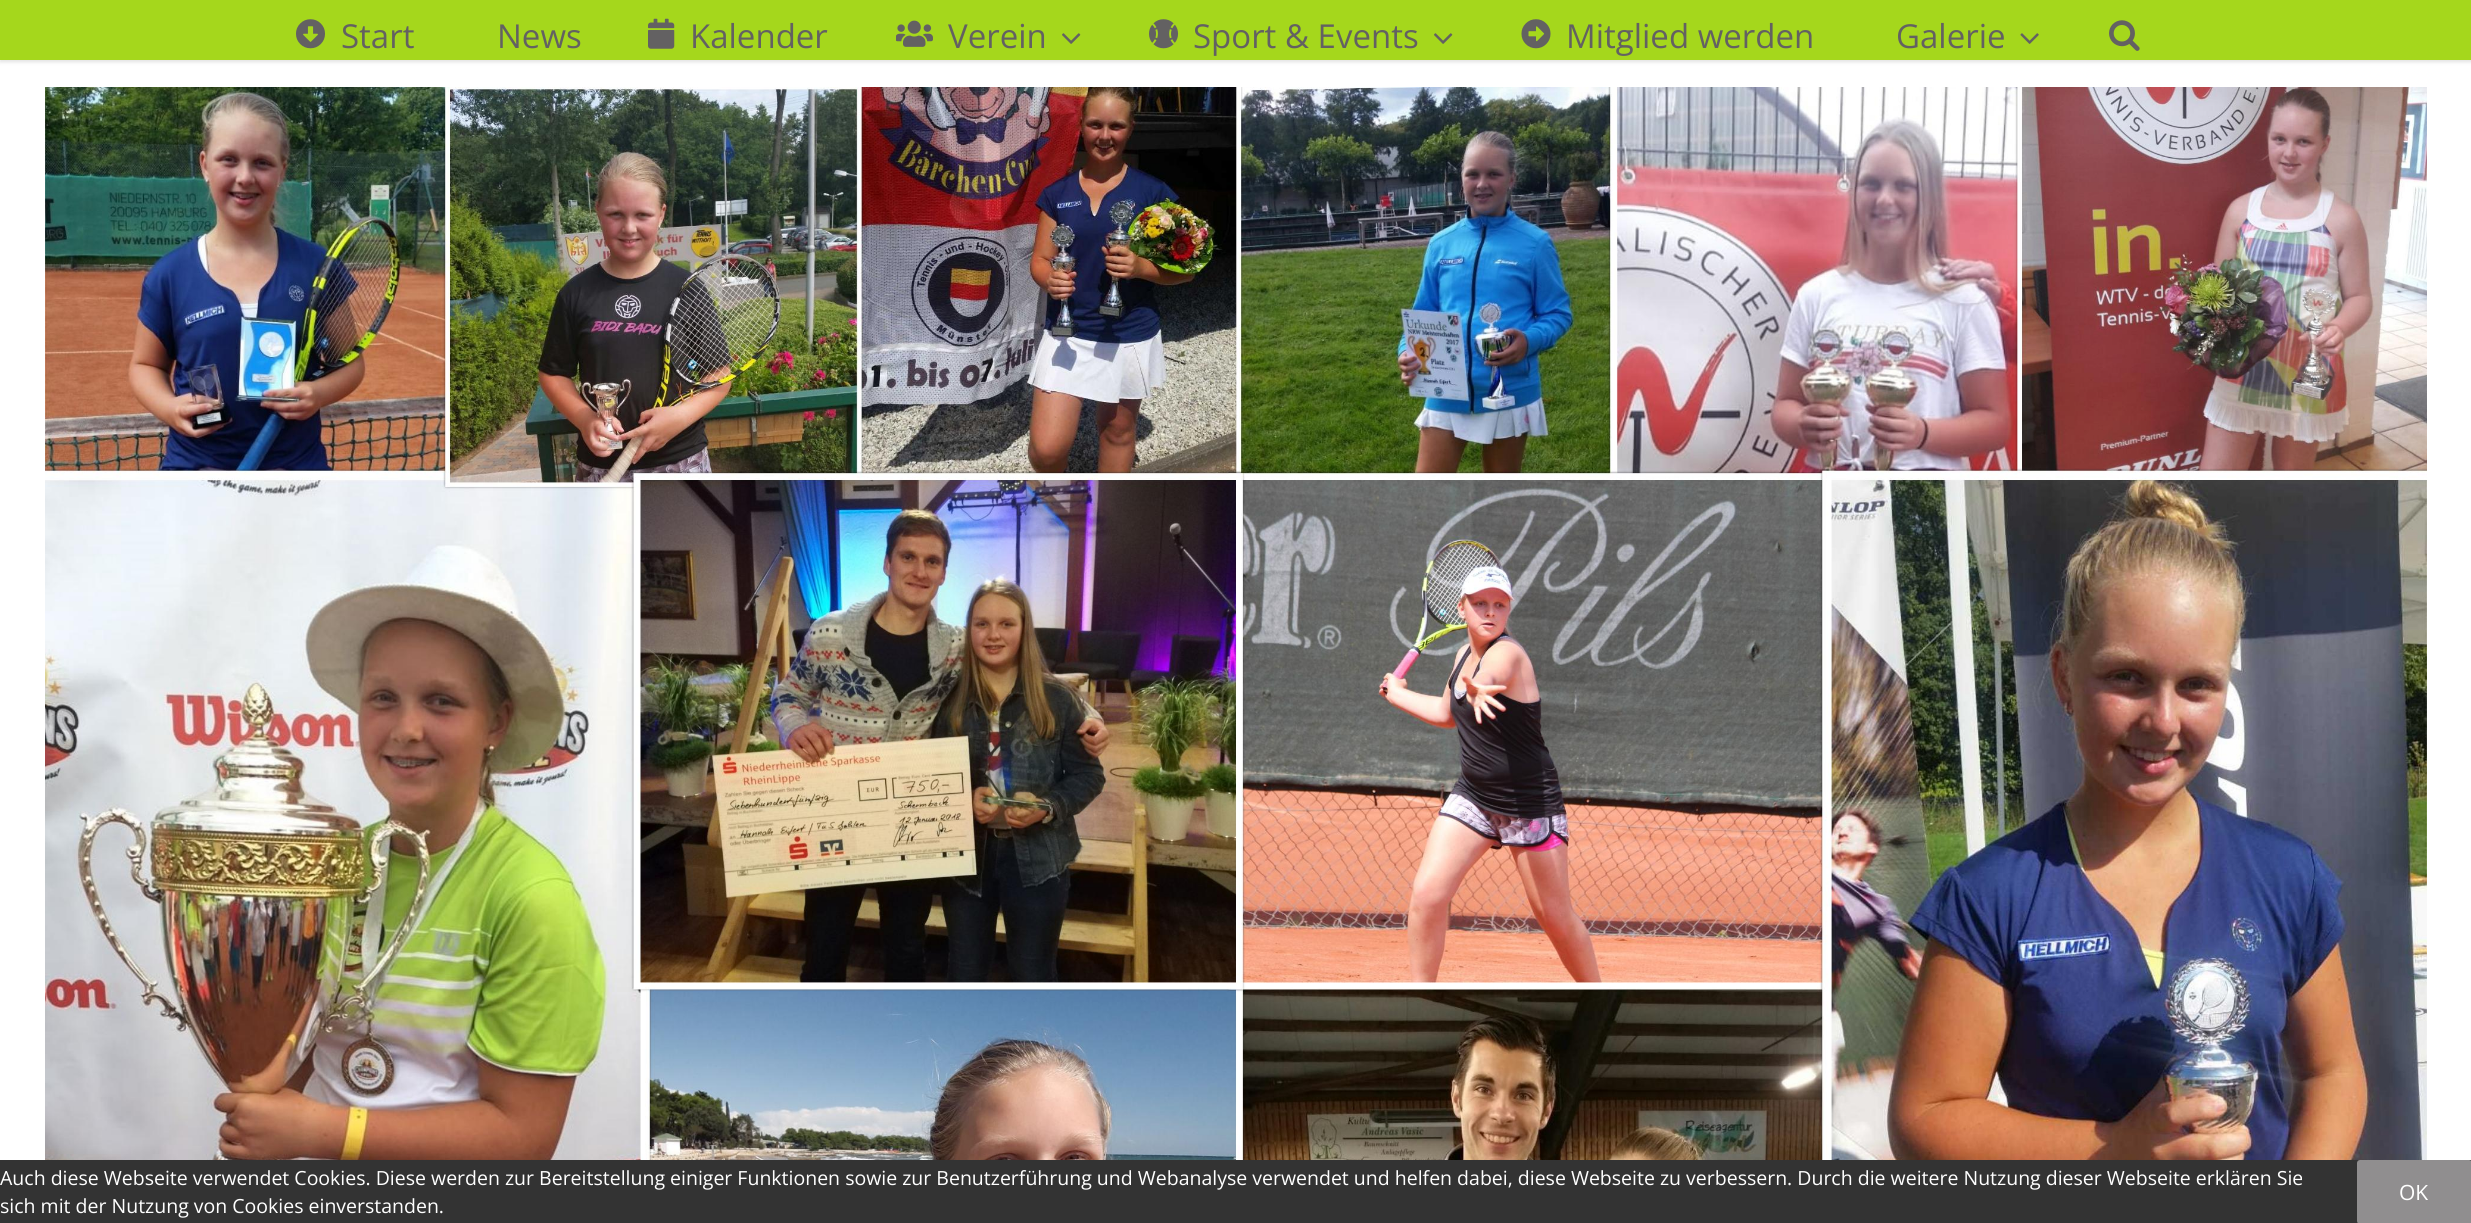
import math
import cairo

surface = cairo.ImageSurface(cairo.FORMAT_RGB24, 2471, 1223)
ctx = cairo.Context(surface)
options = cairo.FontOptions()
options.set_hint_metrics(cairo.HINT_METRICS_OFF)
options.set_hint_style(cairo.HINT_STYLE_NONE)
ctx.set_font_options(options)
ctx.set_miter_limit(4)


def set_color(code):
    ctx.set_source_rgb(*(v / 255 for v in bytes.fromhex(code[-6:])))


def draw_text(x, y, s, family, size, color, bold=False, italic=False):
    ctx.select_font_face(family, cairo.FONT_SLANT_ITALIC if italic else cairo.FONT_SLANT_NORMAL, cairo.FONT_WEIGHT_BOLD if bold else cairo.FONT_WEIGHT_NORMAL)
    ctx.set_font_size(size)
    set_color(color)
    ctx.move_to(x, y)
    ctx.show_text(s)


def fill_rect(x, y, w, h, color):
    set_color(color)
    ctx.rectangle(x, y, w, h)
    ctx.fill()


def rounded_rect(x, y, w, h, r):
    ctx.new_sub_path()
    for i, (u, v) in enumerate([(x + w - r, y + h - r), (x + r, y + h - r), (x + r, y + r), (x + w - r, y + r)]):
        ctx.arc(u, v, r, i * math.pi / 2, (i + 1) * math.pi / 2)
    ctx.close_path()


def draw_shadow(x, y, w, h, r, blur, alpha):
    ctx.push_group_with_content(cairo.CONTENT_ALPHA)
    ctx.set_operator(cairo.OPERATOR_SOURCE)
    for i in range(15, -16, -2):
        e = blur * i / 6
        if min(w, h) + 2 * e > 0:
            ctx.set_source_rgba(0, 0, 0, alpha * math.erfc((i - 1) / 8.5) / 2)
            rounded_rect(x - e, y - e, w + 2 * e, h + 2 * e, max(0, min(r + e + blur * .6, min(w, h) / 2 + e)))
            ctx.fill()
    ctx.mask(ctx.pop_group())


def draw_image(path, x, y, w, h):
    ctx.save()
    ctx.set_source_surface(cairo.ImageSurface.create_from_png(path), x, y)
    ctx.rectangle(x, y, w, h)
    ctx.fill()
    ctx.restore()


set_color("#ffffff")
ctx.paint()
set_color("#000000")
draw_shadow(0, 2, 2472, 60, 0, 2, 0.12)
fill_rect(0, 0, 2471, 60, "#a5d71c")
draw_image("assets/img1.png", 296, 19, 29, 30)
draw_text(341, 48, "Start", "Open Sans", 33, "#636162")
draw_text(497, 48, "News", "Open Sans", 33, "#636162")
draw_image("assets/img2.png", 648, 18, 27, 31)
draw_text(690, 48, "Kalender", "Open Sans", 33, "#636162")
draw_image("assets/img3.png", 896, 20, 37, 27)
draw_text(948, 48, "Verein", "Open Sans", 33, "#636162")
draw_image("assets/img4.png", 1062, 33, 19, 11)
draw_image("assets/img5.png", 1149, 19, 30, 30)
draw_text(1193, 48, "Sport & Events", "Open Sans", 33, "#636162")
draw_image("assets/img4.png", 1434, 33, 19, 11)
draw_image("assets/img6.png", 1521, 19, 30, 30)
draw_text(1566, 48, "Mitglied werden", "Open Sans", 33, "#636162")
draw_text(1896, 48, "Galerie", "Open Sans", 33, "#636162")
draw_image("assets/img7.png", 2020, 33, 19, 11)
draw_image("assets/img8.png", 2109, 20, 31, 31)
draw_image("assets/img9.png", 45, 87, 2382, 1073)
fill_rect(0, 1160, 2471, 63, "#333333")
draw_text(0, 1185, "Auch diese Webseite verwendet Cookies. Diese werden zur Bereitstellung einiger Funktionen sowie zur Benutzerführung und Webanalyse verwendet und helfen dabei, diese Webseite zu verbessern. Durch die weitere Nutzung dieser Webseite erklären Sie", "Open Sans", 19.5, "#ffffff")
draw_text(0, 1213, "sich mit der Nutzung von Cookies einverstanden.", "Open Sans", 19.5, "#ffffff")
set_color("#908e8f")
rounded_rect(2357, 1160, 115, 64, 3)
ctx.fill()
draw_text(2399, 1200, "OK", "Open Sans", 21, "#ffffff")
surface.write_to_png("output.png")
